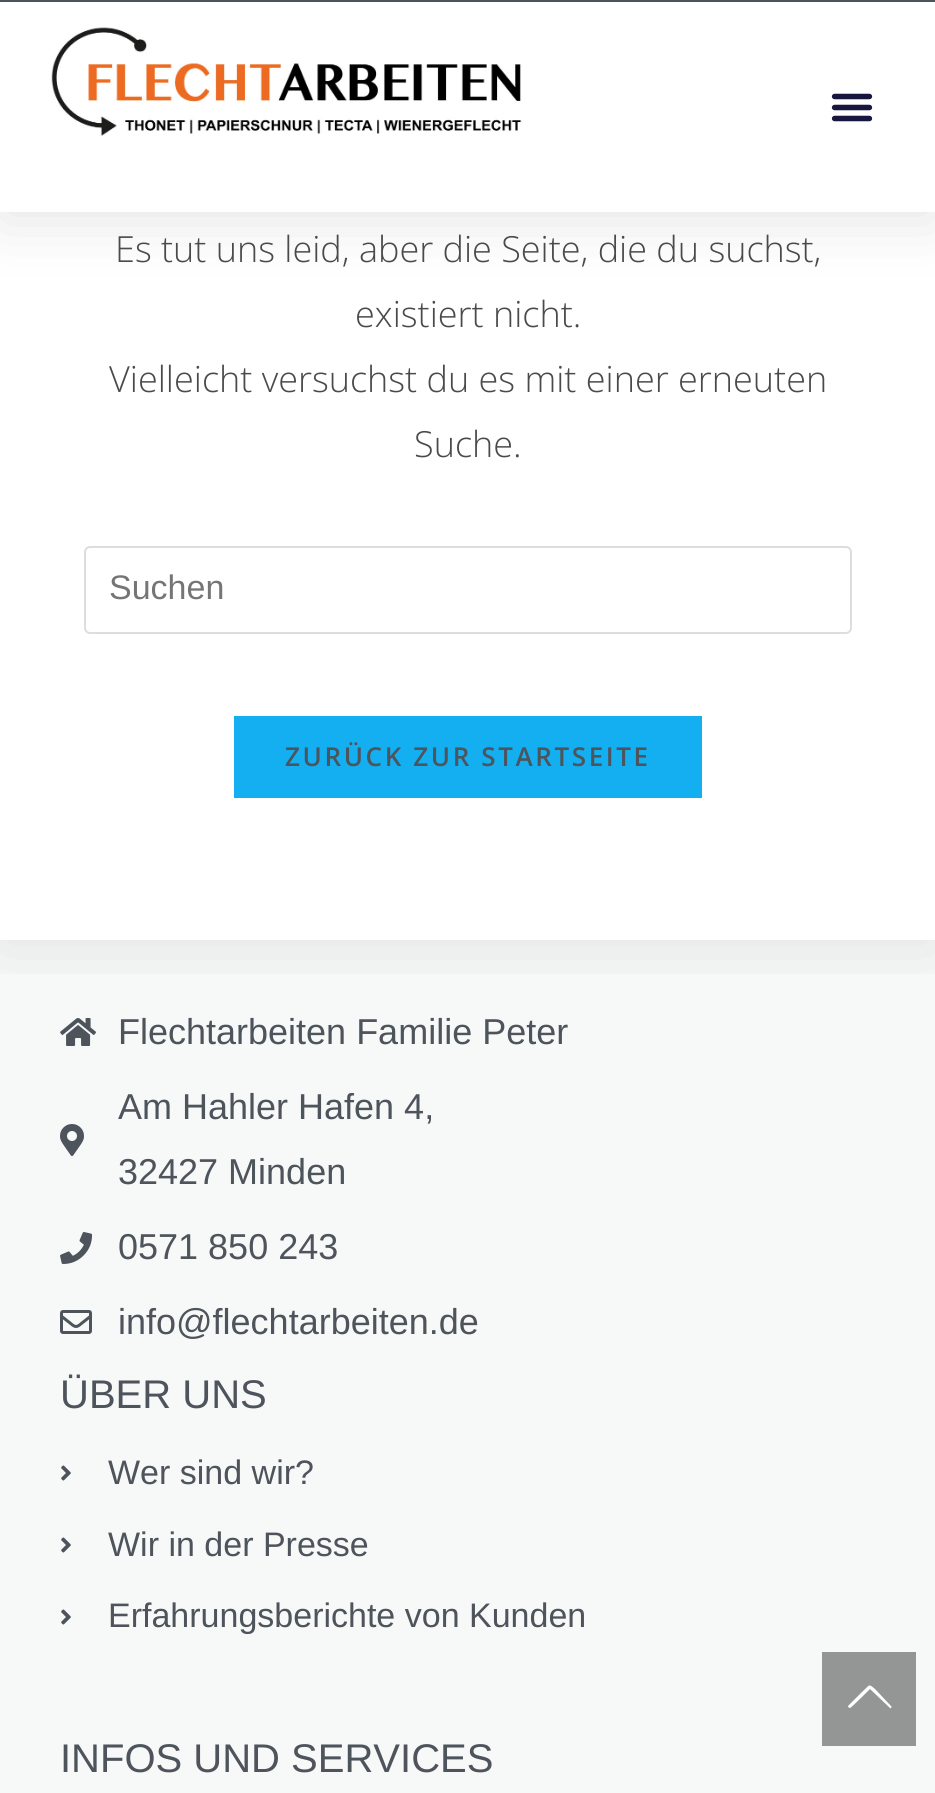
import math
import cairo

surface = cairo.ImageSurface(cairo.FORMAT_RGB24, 935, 1793)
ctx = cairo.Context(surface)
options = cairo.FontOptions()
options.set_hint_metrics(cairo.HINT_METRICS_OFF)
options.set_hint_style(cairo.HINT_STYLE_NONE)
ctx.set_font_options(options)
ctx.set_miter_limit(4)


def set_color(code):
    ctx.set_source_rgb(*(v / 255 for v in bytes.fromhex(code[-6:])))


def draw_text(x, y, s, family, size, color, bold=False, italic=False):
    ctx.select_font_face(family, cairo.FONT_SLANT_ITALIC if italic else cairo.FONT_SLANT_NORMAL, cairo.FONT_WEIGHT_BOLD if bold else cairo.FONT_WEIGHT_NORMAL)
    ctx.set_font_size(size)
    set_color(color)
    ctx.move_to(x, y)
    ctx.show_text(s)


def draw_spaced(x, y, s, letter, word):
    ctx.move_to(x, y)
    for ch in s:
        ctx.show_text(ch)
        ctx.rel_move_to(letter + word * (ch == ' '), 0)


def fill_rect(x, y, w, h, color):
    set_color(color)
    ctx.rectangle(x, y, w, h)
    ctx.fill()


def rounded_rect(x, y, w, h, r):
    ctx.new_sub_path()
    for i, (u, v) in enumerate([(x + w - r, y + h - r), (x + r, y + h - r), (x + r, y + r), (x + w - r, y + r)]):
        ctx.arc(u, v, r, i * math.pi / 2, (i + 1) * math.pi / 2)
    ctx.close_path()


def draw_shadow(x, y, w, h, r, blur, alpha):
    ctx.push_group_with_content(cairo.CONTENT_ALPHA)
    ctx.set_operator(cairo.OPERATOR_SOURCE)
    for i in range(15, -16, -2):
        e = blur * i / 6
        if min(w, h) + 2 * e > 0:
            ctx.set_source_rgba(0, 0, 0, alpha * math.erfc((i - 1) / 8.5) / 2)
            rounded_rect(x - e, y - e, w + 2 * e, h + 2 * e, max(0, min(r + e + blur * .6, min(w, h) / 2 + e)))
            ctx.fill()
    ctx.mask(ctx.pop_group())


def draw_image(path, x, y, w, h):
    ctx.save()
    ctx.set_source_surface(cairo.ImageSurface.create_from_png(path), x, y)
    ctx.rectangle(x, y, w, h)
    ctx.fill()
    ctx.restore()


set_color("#ffffff")
ctx.paint()
set_color("#000000")
draw_shadow(0, 10, 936, 212, 0, 30, 0.1)
fill_rect(0, 940, 935, 853, "#f7f8f8")
draw_image("assets/img3.png", 60, 1018, 36, 28)
ctx.save()
ctx.rectangle(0, 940, 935, 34)
ctx.clip()
set_color("#000000")
draw_shadow(0, -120, 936, 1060, 0, 40, 0.1)
ctx.restore()
fill_rect(0, 0, 935, 2, "#4d545b")
fill_rect(0, 2, 935, 210, "#ffffff")
draw_image("assets/img1.png", 51, 27, 471, 109)
draw_image("assets/img2.png", 831, 93, 42, 29)
draw_text(115, 262, "Es tut uns leid, aber die Seite, die du suchst,", "Open Sans Light", 36, "#4a4a4a")
draw_text(355, 327, "existiert nicht.", "Open Sans Light", 36, "#4a4a4a")
draw_text(109, 392, "Vielleicht versuchst du es mit einer erneuten", "Open Sans Light", 36, "#4a4a4a")
draw_text(414, 457, "Suche.", "Open Sans Light", 36, "#4a4a4a")
rounded_rect(85, 547, 766, 86, 5)
set_color("#dddddd")
ctx.stroke()
draw_text(109, 599, "Suchen", "Liberation Sans", 34, "#757575")
fill_rect(234, 716, 468, 82, "#13aff0")
ctx.select_font_face("Open Sans SemiBold")
ctx.set_font_size(26)
set_color("#4d545b")
draw_spaced(285, 766, "ZURÜCK ZUR STARTSEITE", 2.6, 0)
draw_text(118, 1044, "Flechtarbeiten Familie Peter", "Liberation Sans", 36, "#4d545b")
draw_image("assets/img4.png", 60, 1124, 24, 32)
draw_text(118, 1119, "Am Hahler Hafen 4,", "Liberation Sans", 36, "#4d545b")
draw_text(118, 1184, "32427 Minden", "Liberation Sans", 36, "#4d545b")
draw_image("assets/img5.png", 60, 1232, 33, 32)
draw_text(118, 1259, "0571 850 243", "Liberation Sans", 36, "#4d545b")
draw_image("assets/img6.png", 60, 1310, 32, 24)
draw_text(118, 1334, "info@flechtarbeiten.de", "Liberation Sans", 36, "#4d545b")
draw_text(60, 1408, "ÜBER UNS", "Liberation Sans", 40, "#4d545b")
draw_image("assets/img7.png", 61, 1465, 10, 16)
draw_text(108, 1484, "Wer sind wir?", "Liberation Sans", 34, "#4d545b")
draw_image("assets/img7.png", 61, 1537, 10, 16)
draw_text(108, 1556, "Wir in der Presse", "Liberation Sans", 34, "#4d545b")
draw_image("assets/img7.png", 61, 1609, 10, 16)
draw_text(108, 1627, "Erfahrungsberichte von Kunden", "Liberation Sans", 34, "#4d545b")
draw_text(60, 1772, "INFOS UND SERVICES", "Liberation Sans", 40, "#4d545b")
fill_rect(822, 1652, 94, 94, "#949595")
set_color("#ffffff")
ctx.new_path()
ctx.move_to(848, 1706)
ctx.curve_to(848, 1707, 849, 1708, 850, 1708)
ctx.curve_to(851, 1708, 868, 1691, 870, 1689)
ctx.line_to(890, 1708)
ctx.curve_to(891, 1709, 892, 1707, 891, 1706)
ctx.line_to(875, 1689)
ctx.curve_to(868, 1683, 870, 1685, 862, 1692)
ctx.close_path()
ctx.fill()
surface.write_to_png("output.png")
